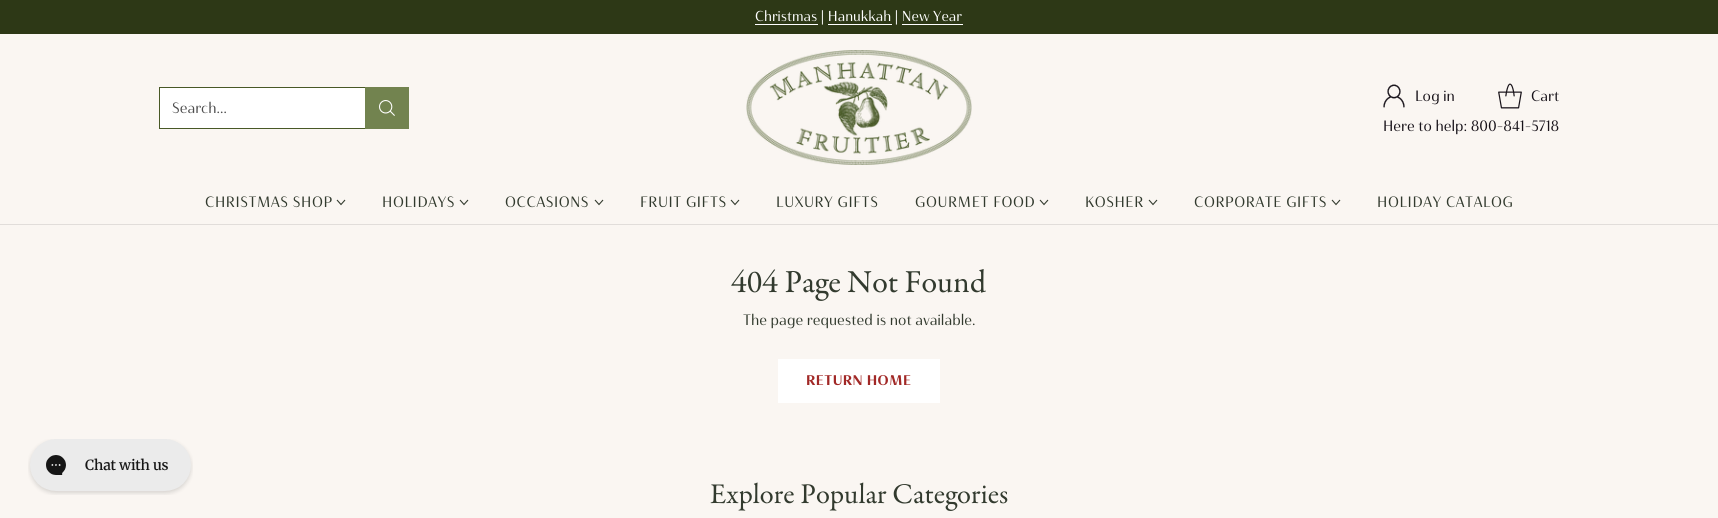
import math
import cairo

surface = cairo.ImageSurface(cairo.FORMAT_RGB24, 1718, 518)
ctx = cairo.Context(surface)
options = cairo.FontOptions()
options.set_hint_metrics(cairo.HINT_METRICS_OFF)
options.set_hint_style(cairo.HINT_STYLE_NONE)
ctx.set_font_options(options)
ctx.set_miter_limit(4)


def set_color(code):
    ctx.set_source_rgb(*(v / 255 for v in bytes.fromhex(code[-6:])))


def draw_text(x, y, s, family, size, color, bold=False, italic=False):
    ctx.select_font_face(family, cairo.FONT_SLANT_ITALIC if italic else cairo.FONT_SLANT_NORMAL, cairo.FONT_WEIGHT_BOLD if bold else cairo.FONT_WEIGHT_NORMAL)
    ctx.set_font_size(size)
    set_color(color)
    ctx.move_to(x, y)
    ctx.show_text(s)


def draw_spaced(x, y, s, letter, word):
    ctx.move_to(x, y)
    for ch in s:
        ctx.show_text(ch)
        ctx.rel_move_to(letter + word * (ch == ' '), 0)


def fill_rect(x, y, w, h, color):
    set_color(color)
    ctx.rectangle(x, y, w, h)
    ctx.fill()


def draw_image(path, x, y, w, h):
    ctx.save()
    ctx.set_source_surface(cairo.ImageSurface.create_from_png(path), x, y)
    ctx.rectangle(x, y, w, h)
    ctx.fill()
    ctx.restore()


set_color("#faf6f2")
ctx.paint()
draw_image("assets/img1.png", 28, 439, 165, 56)
fill_rect(0, 0, 1718, 34, "#2d3816")
fill_rect(755, 24, 63, 1, "#ffffff")
draw_text(755, 21, "Christmas | Hanukkah | New Year", "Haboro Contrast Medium", 14.4, "#ffffff")
fill_rect(828, 24, 64, 1, "#ffffff")
fill_rect(902, 24, 61, 1, "#ffffff")
ctx.rectangle(-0.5, 180.5, 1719, 44)
set_color("#e1ddda")
ctx.set_line_width(1)
ctx.stroke()
fill_rect(0, 180, 1718, 1, "#faf6f2")
ctx.rectangle(159.5, 87.5, 249, 41)
set_color("#485826")
ctx.stroke()
fill_rect(160, 88, 205, 40, "#ffffff")
draw_text(172, 113, "Search…", "Haboro Contrast Medium", 15, "#4d4d4d")
fill_rect(365, 87, 44, 42, "#72834f")
draw_image("assets/img2.png", 379, 100, 16, 16)
draw_image("assets/img3.png", 746, 50, 226, 115)
draw_image("assets/img4.png", 1383, 84, 22, 24)
draw_text(1415, 101, "Log in", "Haboro Contrast Medium", 15, "#171219")
draw_image("assets/img5.png", 1498, 83, 24, 26)
draw_text(1531, 101, "Cart", "Haboro Contrast Medium", 15, "#171219")
draw_text(1383, 131, "Here to help: 800-841-5718", "Haboro Contrast Medium", 15, "#171219")
set_color("#323a2e")
draw_spaced(205, 207, "CHRISTMAS SHOP", 0.6, 0)
ctx.new_path()
ctx.move_to(337, 200)
ctx.line_to(341, 204.5)
ctx.line_to(345, 200)
ctx.set_line_width(1.1)
ctx.stroke()
draw_spaced(382, 207, "HOLIDAYS", 0.6, 0)
ctx.new_path()
ctx.move_to(460, 200)
ctx.line_to(464, 204.5)
ctx.line_to(468, 200)
ctx.stroke()
draw_spaced(505, 207, "OCCASIONS", 0.6, 0)
ctx.new_path()
ctx.move_to(595, 200)
ctx.line_to(599, 204.5)
ctx.line_to(603, 200)
ctx.stroke()
draw_spaced(640, 207, "FRUIT GIFTS", 0.6, 0)
ctx.new_path()
ctx.move_to(731, 200)
ctx.line_to(735, 204.5)
ctx.line_to(739, 200)
ctx.stroke()
draw_spaced(776, 207, "LUXURY GIFTS", 0.6, 0)
draw_spaced(915, 207, "GOURMET FOOD", 0.6, 0)
ctx.new_path()
ctx.move_to(1040, 200)
ctx.line_to(1044, 204.5)
ctx.line_to(1048, 200)
ctx.stroke()
draw_spaced(1085, 207, "KOSHER", 0.6, 0)
ctx.new_path()
ctx.move_to(1149, 200)
ctx.line_to(1153, 204.5)
ctx.line_to(1157, 200)
ctx.stroke()
draw_spaced(1194, 207, "CORPORATE GIFTS", 0.6, 0)
ctx.new_path()
ctx.move_to(1332, 200)
ctx.line_to(1336, 204.5)
ctx.line_to(1340, 200)
ctx.stroke()
draw_spaced(1377, 207, "HOLIDAY CATALOG", 0.6, 0)
draw_text(731, 292, "404 Page Not Found", "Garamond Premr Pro", 32.25, "#323a2e")
draw_text(743, 325, "The page requested is not available.", "Haboro Contrast Medium", 15, "#323a2e")
fill_rect(778, 359, 162, 44, "#ffffff")
ctx.select_font_face("Haboro Contrast ExtraBold")
ctx.set_font_size(14)
set_color("#a12826")
draw_spaced(806, 385, "RETURN HOME", 0.5, 0)
draw_text(710, 503, "Explore Popular Categories", "Garamond Premr Pro", 28.75, "#323a2e")
surface.write_to_png("output.png")
